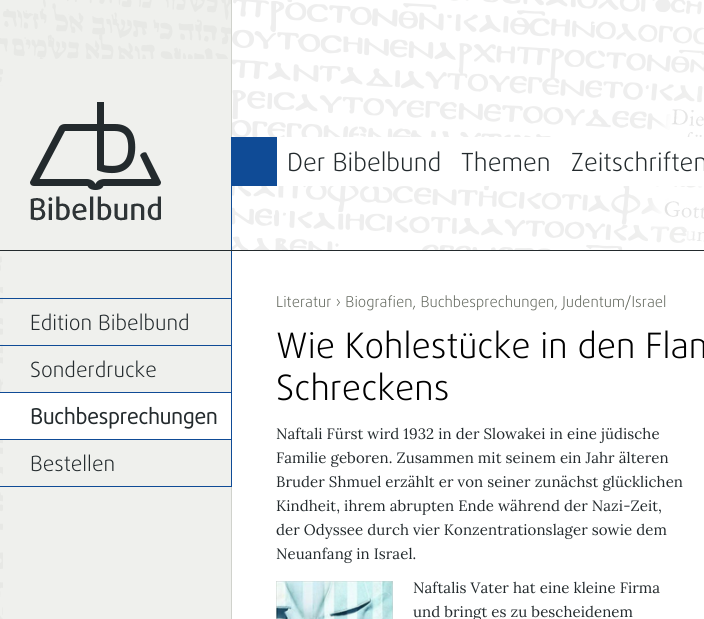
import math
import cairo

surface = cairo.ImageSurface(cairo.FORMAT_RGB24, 704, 619)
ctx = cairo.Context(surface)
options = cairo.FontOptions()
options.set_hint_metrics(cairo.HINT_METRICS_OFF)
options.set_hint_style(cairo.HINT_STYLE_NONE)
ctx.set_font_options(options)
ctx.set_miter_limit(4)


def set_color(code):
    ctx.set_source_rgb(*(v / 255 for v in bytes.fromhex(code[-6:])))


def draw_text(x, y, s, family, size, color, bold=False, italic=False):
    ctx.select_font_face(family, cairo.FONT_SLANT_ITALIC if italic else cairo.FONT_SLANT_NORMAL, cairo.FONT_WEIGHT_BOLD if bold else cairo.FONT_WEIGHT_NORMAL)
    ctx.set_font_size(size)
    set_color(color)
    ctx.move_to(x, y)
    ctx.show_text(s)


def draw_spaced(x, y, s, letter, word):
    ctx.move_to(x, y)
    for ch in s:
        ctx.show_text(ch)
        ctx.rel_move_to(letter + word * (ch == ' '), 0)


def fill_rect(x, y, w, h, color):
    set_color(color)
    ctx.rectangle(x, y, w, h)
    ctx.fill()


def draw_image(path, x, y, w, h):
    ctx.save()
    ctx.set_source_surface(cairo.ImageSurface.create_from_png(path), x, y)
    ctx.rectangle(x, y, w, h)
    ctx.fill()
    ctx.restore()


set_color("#ffffff")
ctx.paint()
draw_image("assets/img1.png", 0, 0, 231, 619)
draw_image("assets/img2.png", 232, 0, 472, 619)
fill_rect(0, 250, 704, 1, "#232a2d")
fill_rect(0, 86, 3, 112, "#eff0ed")
draw_image("assets/img3.png", 30, 102, 131, 119)
fill_rect(231, 0, 1, 137, "#d0d2cc")
fill_rect(231, 137, 1, 113, "#0f4b96")
fill_rect(232, 137, 45, 49, "#0f4b96")
fill_rect(277, 137, 427, 49, "#ffffff")
draw_text(287, 171, "Der Bibelbund", "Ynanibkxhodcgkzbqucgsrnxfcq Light", 25, "#232a2d")
draw_text(461, 171, "Themen", "Ynanibkxhodcgkzbqucgsrnxfcq Light", 25, "#232a2d")
draw_text(571, 171, "Zeitschriften", "Ynanibkxhodcgkzbqucgsrnxfcq Light", 25, "#232a2d")
fill_rect(231, 251, 1, 236, "#0f4b96")
fill_rect(0, 486, 232, 1, "#0f4b96")
fill_rect(0, 298, 231, 1, "#0f4b96")
draw_text(30, 330, "Edition Bibelbund", "Ynanibkxhodcgkzbqucgsrnxfcq Light", 21, "#232a2d")
fill_rect(0, 345, 231, 1, "#0f4b96")
draw_text(30, 377, "Sonderdrucke", "Ynanibkxhodcgkzbqucgsrnxfcq Light", 21, "#232a2d")
fill_rect(0, 393, 231, 46, "#ffffff")
fill_rect(0, 392, 231, 1, "#0f4b96")
draw_text(30, 424, "Buchbesprechungen", "Ynanibkxhodcgkzbqucgsrnxfcq", 21, "#232a2d", bold=True)
fill_rect(0, 439, 231, 1, "#0f4b96")
draw_text(30, 471, "Bestellen", "Ynanibkxhodcgkzbqucgsrnxfcq Light", 21, "#232a2d")
fill_rect(231, 487, 1, 132, "#d0d2cc")
draw_text(276, 307, "Literatur › Biografien, Buchbesprechungen, Judentum/Israel", "Ynanibkxhodcgkzbqucgsrnxfcq Light", 15, "#5f645a")
draw_text(276, 358, "Wie Kohlestücke in den Flam", "Ynanibkxhodcgkzbqucgsrnxfcq Light", 35, "#000000")
draw_text(276, 400, "Schreckens", "Ynanibkxhodcgkzbqucgsrnxfcq Light", 35, "#000000")
ctx.select_font_face("Lora")
ctx.set_font_size(15)
set_color("#232a2d")
draw_spaced(276, 439, "Naftali Fürst wird 1932 in der Slowakei in eine jüdische", 0.07, 0)
draw_spaced(276, 463, "Familie geboren. Zusammen mit seinem ein Jahr älteren", 0.07, 0)
draw_spaced(276, 487, "Bruder Shmuel erzählt er von seiner zunächst glücklichen", 0.07, 0)
draw_spaced(276, 511, "Kindheit, ihrem abrupten Ende während der Nazi-Zeit,", 0.07, 0)
draw_spaced(276, 535, "der Odyssee durch vier Konzentrationslager sowie dem", 0.07, 0)
draw_spaced(276, 559, "Neuanfang in Israel.", 0.07, 0)
draw_image("assets/img4.png", 276, 581, 117, 38)
draw_spaced(413, 593, "Naftalis Vater hat eine kleine Firma", 0.07, 0)
draw_spaced(413, 617, "und bringt es zu bescheidenem", 0.07, 0)
surface.write_to_png("output.png")
